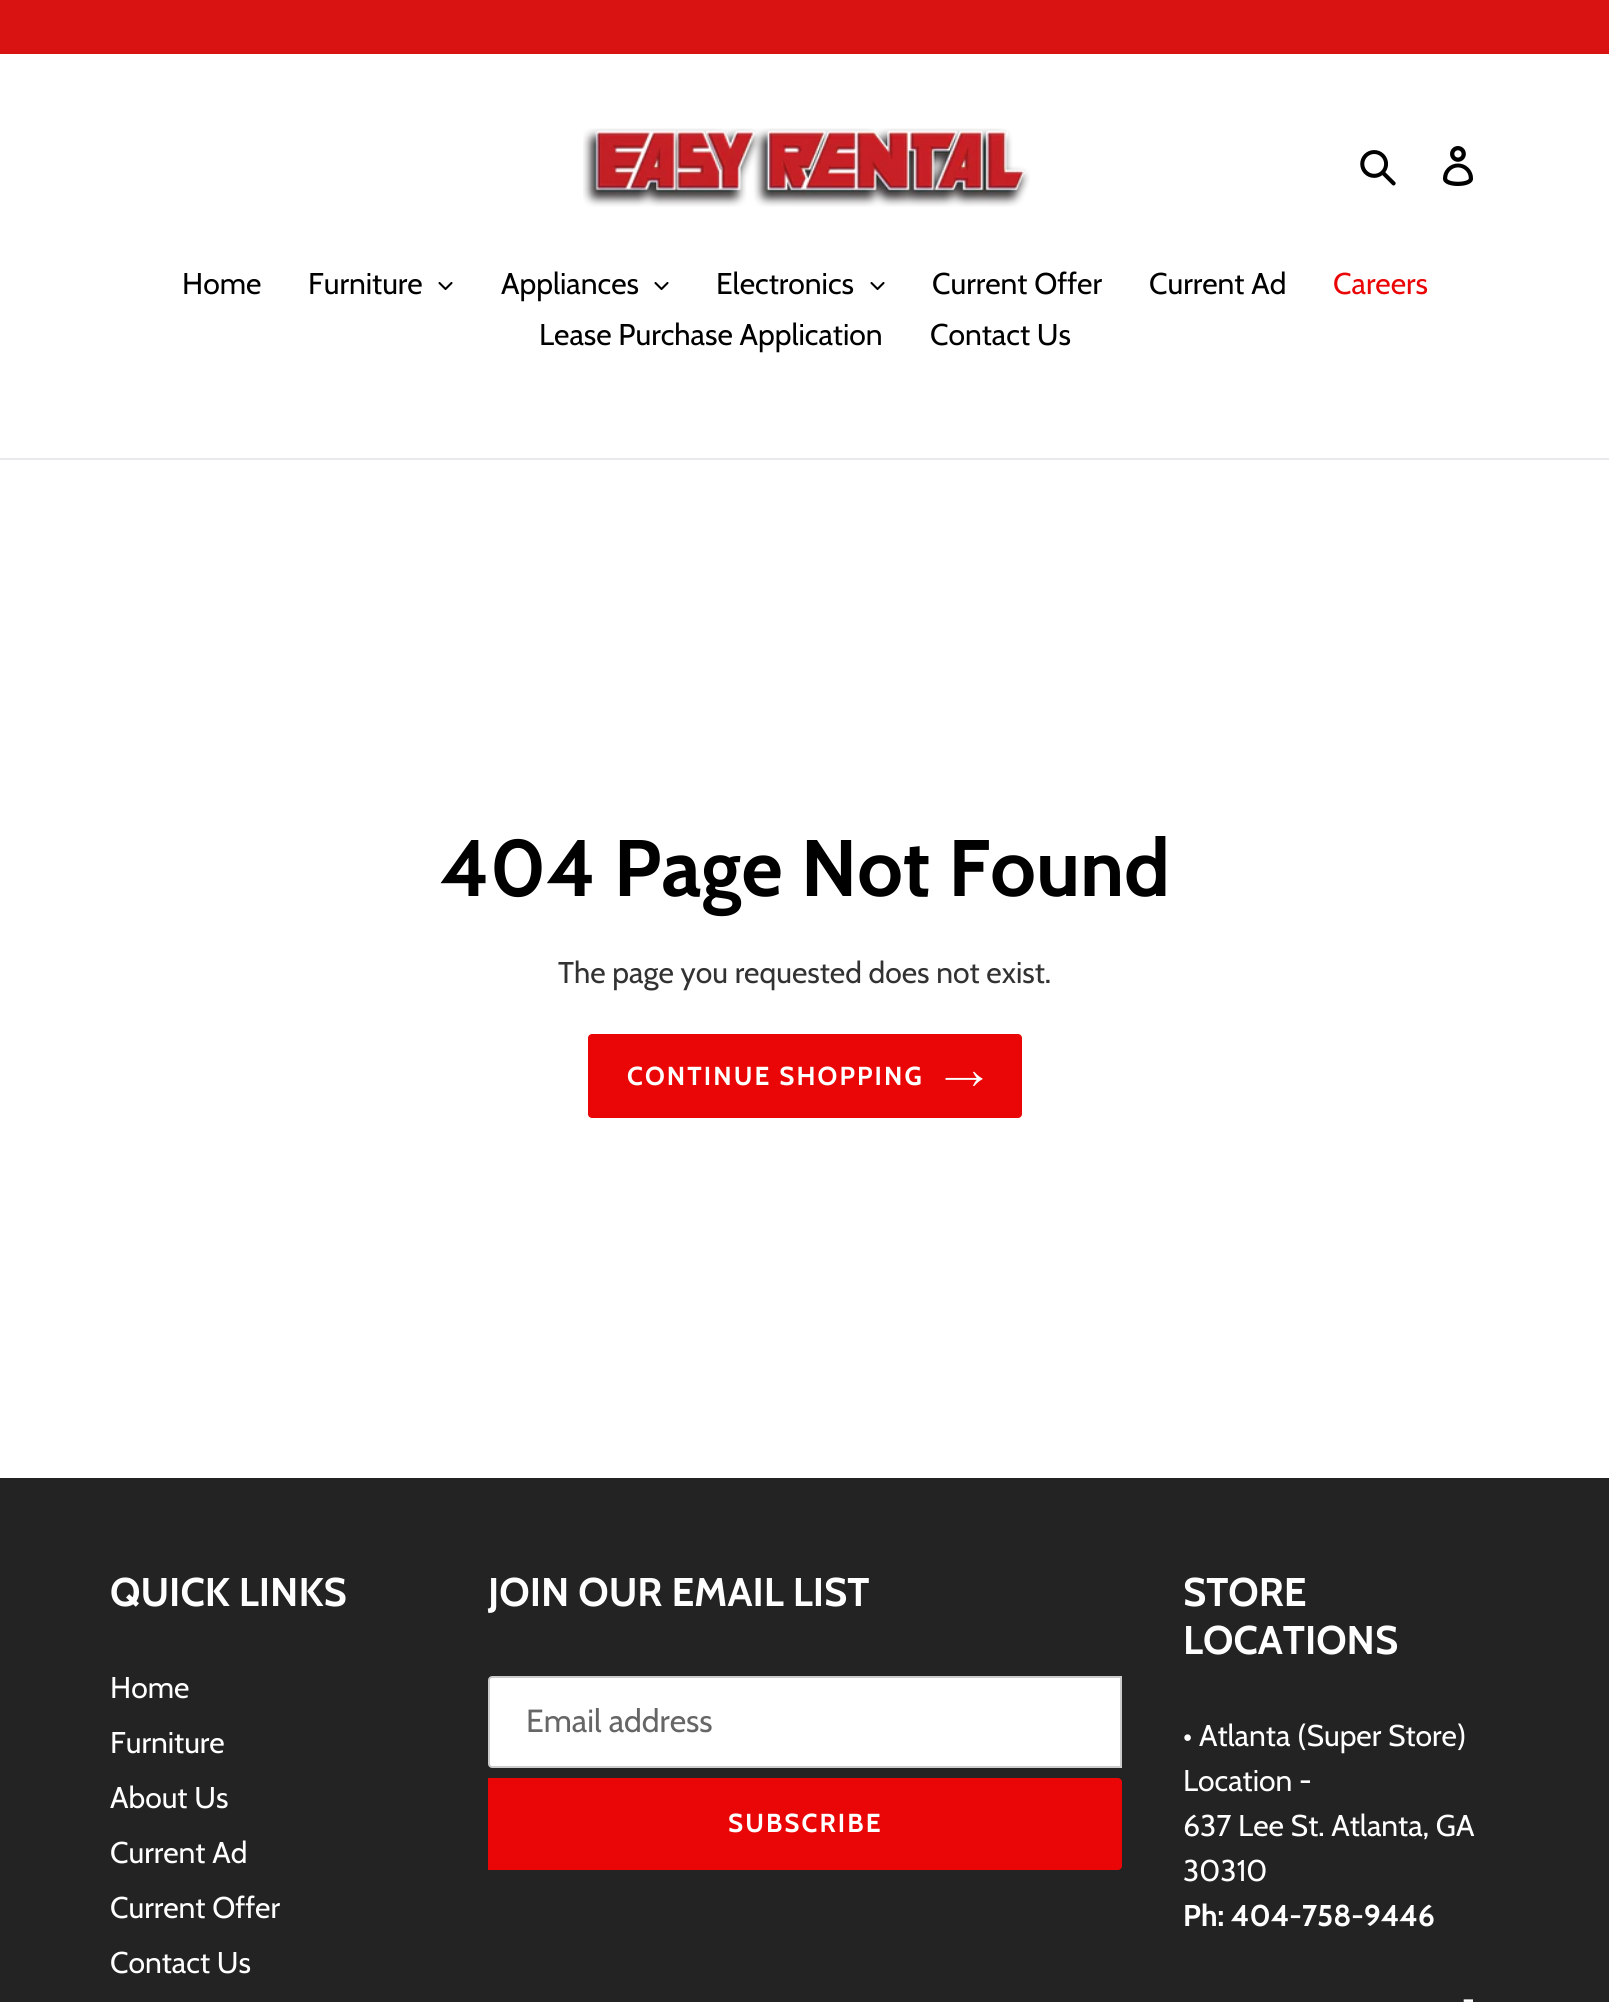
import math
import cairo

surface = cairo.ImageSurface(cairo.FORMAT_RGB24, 1609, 2002)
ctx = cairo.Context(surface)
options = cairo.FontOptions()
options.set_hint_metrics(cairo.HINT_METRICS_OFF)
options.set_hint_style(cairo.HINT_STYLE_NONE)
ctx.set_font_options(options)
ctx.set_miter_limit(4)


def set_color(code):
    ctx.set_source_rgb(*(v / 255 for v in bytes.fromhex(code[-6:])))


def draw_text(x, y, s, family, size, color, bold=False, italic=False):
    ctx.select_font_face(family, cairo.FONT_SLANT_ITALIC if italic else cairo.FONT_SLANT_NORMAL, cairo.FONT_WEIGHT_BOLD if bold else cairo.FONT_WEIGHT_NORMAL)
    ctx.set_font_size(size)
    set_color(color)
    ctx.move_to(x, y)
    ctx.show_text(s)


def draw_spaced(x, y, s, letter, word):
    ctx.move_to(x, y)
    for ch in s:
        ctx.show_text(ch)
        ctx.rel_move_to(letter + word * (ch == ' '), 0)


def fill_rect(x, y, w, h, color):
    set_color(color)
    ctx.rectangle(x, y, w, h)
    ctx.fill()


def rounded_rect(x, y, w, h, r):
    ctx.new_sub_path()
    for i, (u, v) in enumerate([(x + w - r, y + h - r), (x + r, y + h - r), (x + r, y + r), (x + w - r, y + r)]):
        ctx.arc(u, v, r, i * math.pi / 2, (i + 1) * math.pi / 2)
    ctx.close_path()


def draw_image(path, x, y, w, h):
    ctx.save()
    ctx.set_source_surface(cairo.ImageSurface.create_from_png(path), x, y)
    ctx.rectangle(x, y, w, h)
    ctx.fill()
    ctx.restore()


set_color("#ffffff")
ctx.paint()
fill_rect(0, 0, 1609, 54, "#d91212")
draw_image("assets/img1.png", 583, 128, 447, 79)
draw_image("assets/img2.png", 1360, 150, 36, 36)
draw_image("assets/img3.png", 1443, 146, 31, 40)
fill_rect(0, 458, 1609, 2, "#e8e9eb")
draw_text(182, 294, "Home", "Cabin", 30, "#000000")
draw_text(308, 294, "Furniture", "Cabin", 30, "#000000")
draw_image("assets/img4.png", 438, 282, 15, 8)
draw_text(501, 294, "Appliances", "Cabin", 30, "#000000")
draw_image("assets/img4.png", 654, 282, 15, 8)
draw_text(716, 294, "Electronics", "Cabin", 30, "#000000")
draw_image("assets/img4.png", 870, 282, 15, 8)
draw_text(932, 294, "Current Offer", "Cabin", 30, "#000000")
draw_text(1149, 294, "Current Ad", "Cabin", 30, "#000000")
draw_text(1333, 294, "Careers", "Cabin", 30, "#ea0606")
draw_text(539, 345, "Lease Purchase Application", "Cabin", 30, "#000000")
draw_text(930, 345, "Contact Us", "Cabin", 30, "#000000")
draw_text(440, 896, "404 Page Not Found", "Cabin", 80, "#000000", bold=True)
draw_text(558, 983, "The page you requested does not exist.", "Cabin", 30, "#333232")
set_color("#ea0606")
rounded_rect(588, 1034, 434, 84, 4)
ctx.fill()
ctx.select_font_face("Cabin", cairo.FONT_SLANT_NORMAL, cairo.FONT_WEIGHT_BOLD)
ctx.set_font_size(26)
set_color("#ffffff")
draw_spaced(627, 1085, "CONTINUE SHOPPING", 2.1, 0)
draw_image("assets/img5.png", 945, 1071, 38, 15)
fill_rect(0, 1478, 1609, 524, "#232323")
draw_text(110, 1606, "QUICK LINKS", "Cabin", 40, "#ffffff", bold=True)
draw_text(110, 1698, "Home", "Cabin", 30, "#ffffff")
draw_text(110, 1753, "Furniture", "Cabin", 30, "#ffffff")
draw_text(110, 1808, "About Us", "Cabin", 30, "#ffffff")
draw_text(110, 1863, "Current Ad", "Cabin", 30, "#ffffff")
draw_text(110, 1918, "Current Offer", "Cabin", 30, "#ffffff")
draw_text(110, 1973, "Contact Us", "Cabin", 30, "#ffffff")
draw_text(488, 1606, "JOIN OUR EMAIL LIST", "Cabin", 40, "#ffffff", bold=True)
ctx.new_path()
ctx.move_to(492, 1677)
ctx.line_to(1121, 1677)
ctx.line_to(1121, 1767)
ctx.line_to(492, 1767)
ctx.curve_to(490.5, 1767, 489, 1765.5, 489, 1764)
ctx.line_to(489, 1680)
ctx.curve_to(489, 1678.5, 490.5, 1677, 492, 1677)
ctx.close_path()
ctx.fill_preserve()
set_color("#cccccc")
ctx.stroke()
draw_text(526, 1732, "Email address", "Cabin", 32, "#666666")
set_color("#ea0606")
ctx.new_path()
ctx.move_to(488, 1778)
ctx.line_to(1118, 1778)
ctx.curve_to(1120, 1778, 1122, 1780, 1122, 1782)
ctx.line_to(1122, 1866)
ctx.curve_to(1122, 1868, 1120, 1870, 1118, 1870)
ctx.line_to(488, 1870)
ctx.close_path()
ctx.fill()
ctx.select_font_face("Cabin", cairo.FONT_SLANT_NORMAL, cairo.FONT_WEIGHT_BOLD)
ctx.set_font_size(26)
set_color("#ffffff")
draw_spaced(728, 1832, "SUBSCRIBE", 2.1, 0)
draw_text(1183, 1606, "STORE", "Cabin", 40, "#ffffff", bold=True)
draw_text(1183, 1654, "LOCATIONS", "Cabin", 40, "#ffffff", bold=True)
draw_text(1183, 1746, "• Atlanta (Super Store)", "Cabin", 30, "#ffffff")
draw_text(1183, 1791, "Location -", "Cabin", 30, "#ffffff")
draw_text(1183, 1836, "637 Lee St. Atlanta, GA", "Cabin", 30, "#ffffff")
draw_text(1183, 1881, "30310", "Cabin", 30, "#ffffff")
draw_text(1183, 1926, "Ph: 404-758-9446", "Cabin", 30, "#ffffff", bold=True)
draw_text(1462, 2010, "-", "Cabin", 30, "#ffffff")
surface.write_to_png("output.png")
